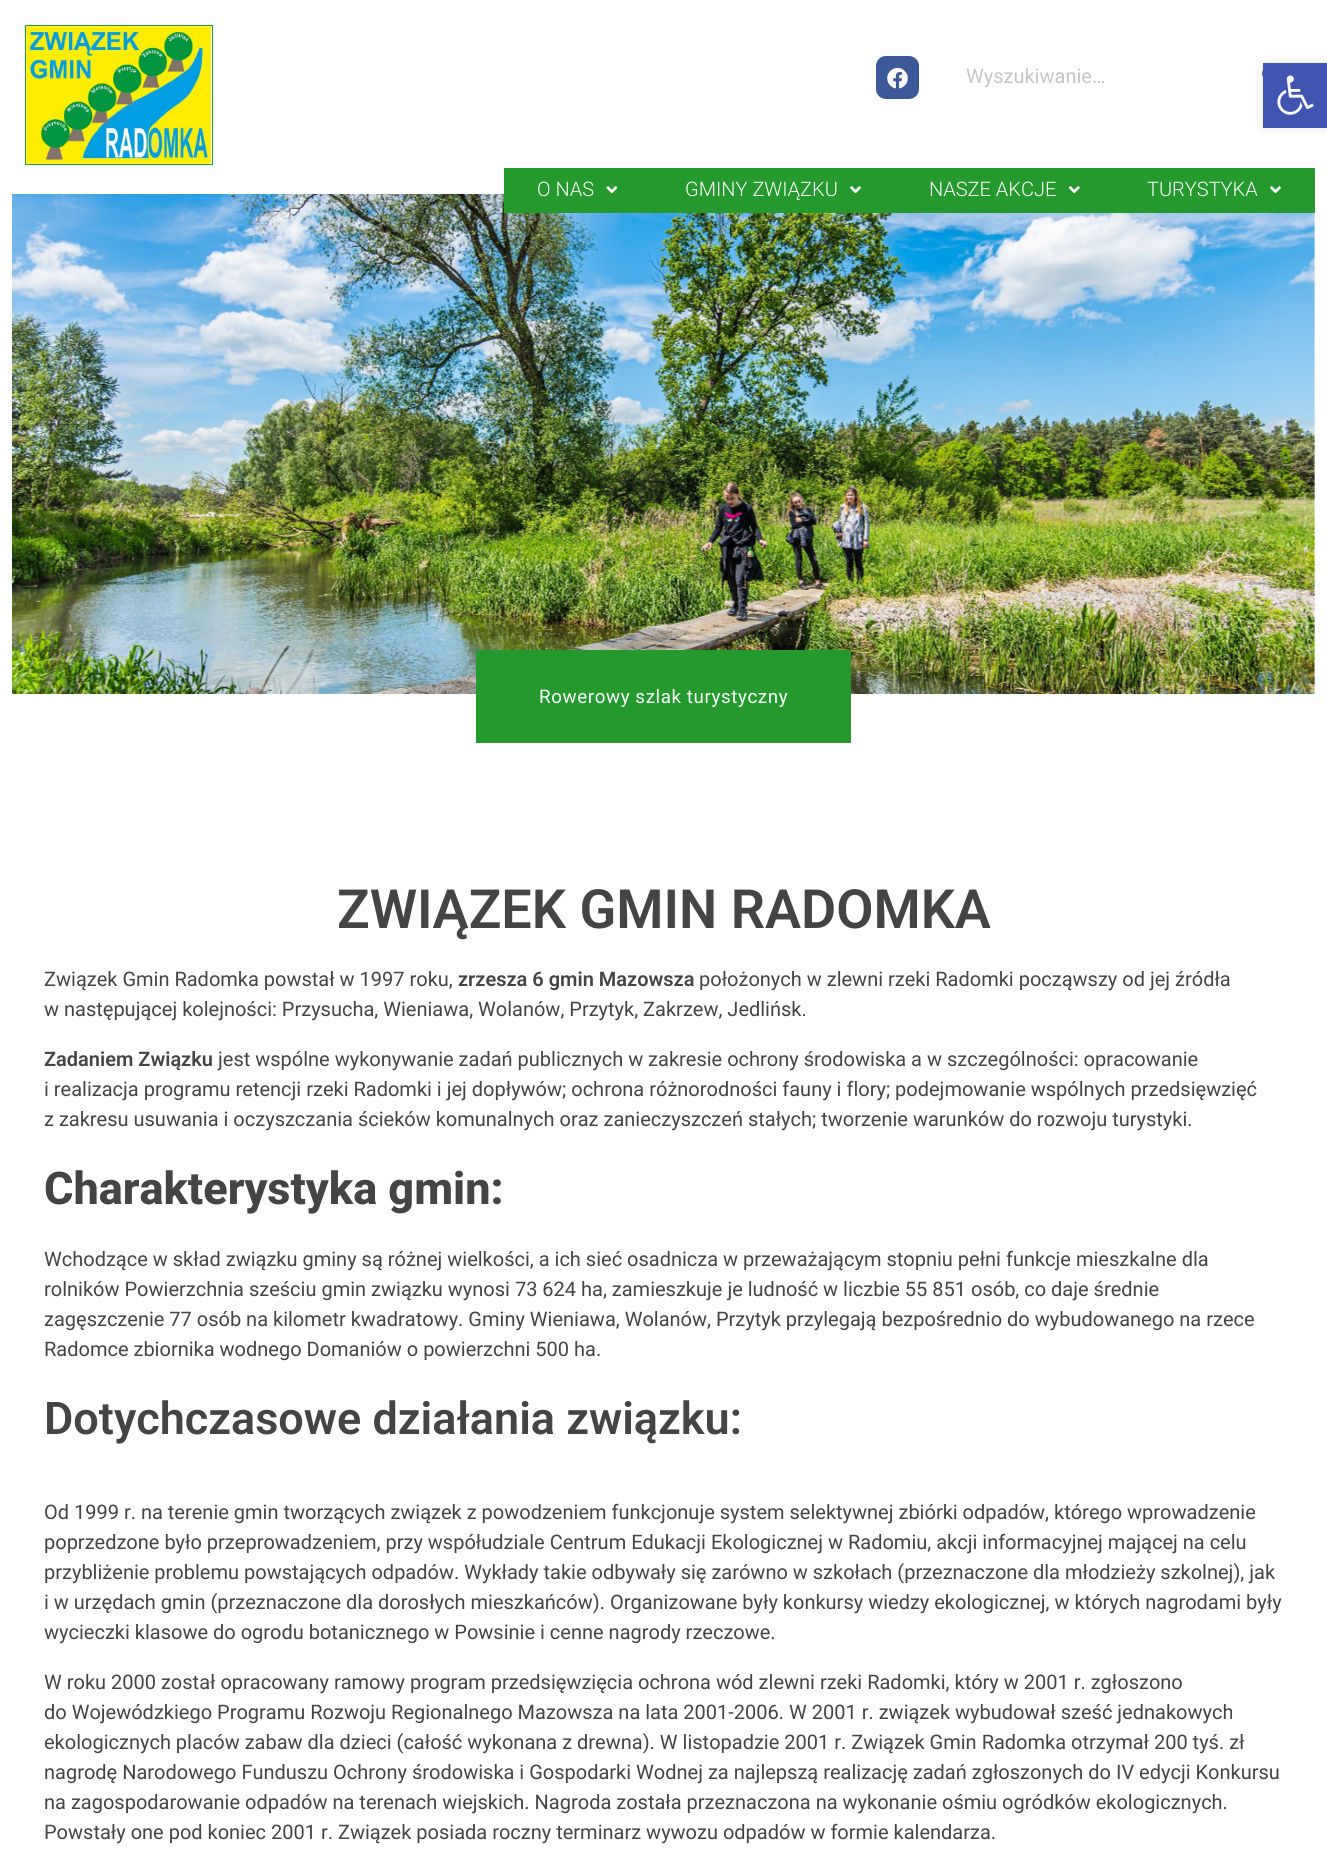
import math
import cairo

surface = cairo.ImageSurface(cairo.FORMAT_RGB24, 1327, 1870)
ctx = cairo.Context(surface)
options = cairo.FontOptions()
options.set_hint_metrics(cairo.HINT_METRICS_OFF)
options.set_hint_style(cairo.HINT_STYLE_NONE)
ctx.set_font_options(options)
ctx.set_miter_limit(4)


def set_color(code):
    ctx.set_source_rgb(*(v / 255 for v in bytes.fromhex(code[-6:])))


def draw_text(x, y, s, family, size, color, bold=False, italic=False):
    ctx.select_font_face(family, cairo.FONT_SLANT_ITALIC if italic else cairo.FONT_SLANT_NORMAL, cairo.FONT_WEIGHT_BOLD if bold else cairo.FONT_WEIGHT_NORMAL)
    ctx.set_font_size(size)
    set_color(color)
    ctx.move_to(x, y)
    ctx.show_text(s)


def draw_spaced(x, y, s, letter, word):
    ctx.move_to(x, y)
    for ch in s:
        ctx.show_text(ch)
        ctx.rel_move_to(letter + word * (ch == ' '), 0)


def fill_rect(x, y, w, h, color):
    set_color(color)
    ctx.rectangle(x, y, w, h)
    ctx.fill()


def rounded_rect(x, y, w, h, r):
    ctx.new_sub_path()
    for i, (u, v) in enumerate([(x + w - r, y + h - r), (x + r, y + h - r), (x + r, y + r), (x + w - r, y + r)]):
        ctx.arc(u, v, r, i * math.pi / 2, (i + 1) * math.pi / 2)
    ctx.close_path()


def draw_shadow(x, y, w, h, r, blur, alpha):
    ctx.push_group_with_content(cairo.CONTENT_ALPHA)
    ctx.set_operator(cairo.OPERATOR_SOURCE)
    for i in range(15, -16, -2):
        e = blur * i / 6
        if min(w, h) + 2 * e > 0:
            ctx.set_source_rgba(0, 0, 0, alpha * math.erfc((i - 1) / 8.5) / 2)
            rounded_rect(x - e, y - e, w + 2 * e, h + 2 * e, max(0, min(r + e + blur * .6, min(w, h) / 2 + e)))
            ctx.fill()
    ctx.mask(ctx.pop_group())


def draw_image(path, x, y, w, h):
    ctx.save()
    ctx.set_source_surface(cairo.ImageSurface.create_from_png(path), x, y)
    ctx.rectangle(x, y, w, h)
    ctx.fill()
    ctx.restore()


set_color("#ffffff")
ctx.paint()
ctx.rectangle(25.5, 25.5, 187, 139)
set_color("#249a2e")
ctx.set_line_width(1)
ctx.stroke()
draw_image("assets/img1.png", 26, 26, 186, 138)
set_color("#3b5998")
rounded_rect(876, 56, 43, 43, 10)
ctx.fill()
draw_image("assets/img2.png", 887, 68, 21, 21)
draw_text(966, 83, "Wyszukiwanie…", "Roboto", 20, "#c5c5c5")
draw_image("assets/img3.png", 1262, 70, 1, 7)
draw_image("assets/img7.png", 12, 194, 1303, 500)
fill_rect(504, 168, 811, 45, "#249a2e")
draw_text(537, 196, "O NAS", "Roboto Light", 20, "#ffffff")
draw_image("assets/img4.png", 606, 186, 12, 8)
draw_text(685, 196, "GMINY ZWIĄZKU", "Roboto Light", 20, "#ffffff")
draw_image("assets/img5.png", 850, 186, 11, 8)
draw_text(929, 196, "NASZE AKCJE", "Roboto Light", 20, "#ffffff")
draw_image("assets/img6.png", 1068, 186, 12, 8)
draw_text(1147, 196, "TURYSTYKA", "Roboto Light", 20, "#ffffff")
draw_image("assets/img5.png", 1270, 186, 11, 8)
fill_rect(476, 650, 375, 93, "#249a2e")
ctx.select_font_face("Roboto")
ctx.set_font_size(18.75)
set_color("#ffffff")
draw_spaced(539, 703, "Rowerowy szlak turystyczny", 0.6, 0)
draw_text(337, 928, "ZWIĄZEK GMIN RADOMKA", "Roboto SemiBold", 54, "#444444")
draw_text(44, 986, "Związek Gmin Radomka powstał w 1997 roku,", "Roboto", 20, "#444444")
draw_text(458, 986, "zrzesza 6 gmin Mazowsza", "Roboto SemiBold", 20, "#444444")
draw_text(699, 986, "położonych w zlewni rzeki Radomki począwszy od jej źródła", "Roboto", 20, "#444444")
draw_text(44, 1016, "w następującej kolejności: Przysucha, Wieniawa, Wolanów, Przytyk, Zakrzew, Jedlińsk.", "Roboto", 20, "#444444")
draw_text(44, 1066, "Zadaniem Związku", "Roboto SemiBold", 20, "#444444")
draw_text(218, 1066, "jest wspólne wykonywanie zadań publicznych w zakresie ochrony środowiska a w szczególności: opracowanie", "Roboto", 20, "#444444")
draw_text(44, 1096, "i realizacja programu retencji rzeki Radomki i jej dopływów; ochrona różnorodności fauny i flory; podejmowanie wspólnych przedsięwzięć", "Roboto", 20, "#444444")
draw_text(44, 1126, "z zakresu usuwania i oczyszczania ścieków komunalnych oraz zanieczyszczeń stałych; tworzenie warunków do rozwoju turystyki.", "Roboto", 20, "#444444")
draw_text(44, 1204, "Charakterystyka gmin:", "Roboto ExtraBold", 45, "#444444")
draw_text(44, 1266, "Wchodzące w skład związku gminy są różnej wielkości, a ich sieć osadnicza w przeważającym stopniu pełni funkcje mieszkalne dla", "Roboto", 20, "#444444")
draw_text(44, 1296, "rolników Powierzchnia sześciu gmin związku wynosi 73 624 ha, zamieszkuje je ludność w liczbie 55 851 osób, co daje średnie", "Roboto", 20, "#444444")
draw_text(44, 1326, "zagęszczenie 77 osób na kilometr kwadratowy. Gminy Wieniawa, Wolanów, Przytyk przylegają bezpośrednio do wybudowanego na rzece", "Roboto", 20, "#444444")
draw_text(44, 1356, "Radomce zbiornika wodnego Domaniów o powierzchni 500 ha.", "Roboto", 20, "#444444")
draw_text(44, 1434, "Dotychczasowe działania związku:", "Roboto SemiBold", 45, "#444444")
draw_text(44, 1519, "Od 1999 r. na terenie gmin tworzących związek z powodzeniem funkcjonuje system selektywnej zbiórki odpadów, którego wprowadzenie", "Roboto", 20, "#444444")
draw_text(44, 1549, "poprzedzone było przeprowadzeniem, przy współudziale Centrum Edukacji Ekologicznej w Radomiu, akcji informacyjnej mającej na celu", "Roboto", 20, "#444444")
draw_text(44, 1579, "przybliżenie problemu powstających odpadów. Wykłady takie odbywały się zarówno w szkołach (przeznaczone dla młodzieży szkolnej), jak", "Roboto", 20, "#444444")
draw_text(44, 1609, "i w urzędach gmin (przeznaczone dla dorosłych mieszkańców). Organizowane były konkursy wiedzy ekologicznej, w których nagrodami były", "Roboto", 20, "#444444")
draw_text(44, 1639, "wycieczki klasowe do ogrodu botanicznego w Powsinie i cenne nagrody rzeczowe.", "Roboto", 20, "#444444")
draw_text(44, 1689, "W roku 2000 został opracowany ramowy program przedsięwzięcia ochrona wód zlewni rzeki Radomki, który w 2001 r. zgłoszono", "Roboto", 20, "#444444")
draw_text(44, 1719, "do Wojewódzkiego Programu Rozwoju Regionalnego Mazowsza na lata 2001-2006. W 2001 r. związek wybudował sześć jednakowych", "Roboto", 20, "#444444")
draw_text(44, 1749, "ekologicznych placów zabaw dla dzieci (całość wykonana z drewna). W listopadzie 2001 r. Związek Gmin Radomka otrzymał 200 tyś. zł", "Roboto", 20, "#444444")
draw_text(44, 1779, "nagrodę Narodowego Funduszu Ochrony środowiska i Gospodarki Wodnej za najlepszą realizację zadań zgłoszonych do IV edycji Konkursu", "Roboto", 20, "#444444")
draw_text(44, 1809, "na zagospodarowanie odpadów na terenach wiejskich. Nagroda została przeznaczona na wykonanie ośmiu ogródków ekologicznych.", "Roboto", 20, "#444444")
draw_text(44, 1839, "Powstały one pod koniec 2001 r. Związek posiada roczny terminarz wywozu odpadów w formie kalendarza.", "Roboto", 20, "#444444")
set_color("#000000")
draw_shadow(1263, 63, 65, 65, 0, 6, 0.1)
fill_rect(1263, 63, 64, 65, "#4054b2")
draw_image("assets/img8.png", 1277, 75, 37, 40)
surface.write_to_png("output.png")
